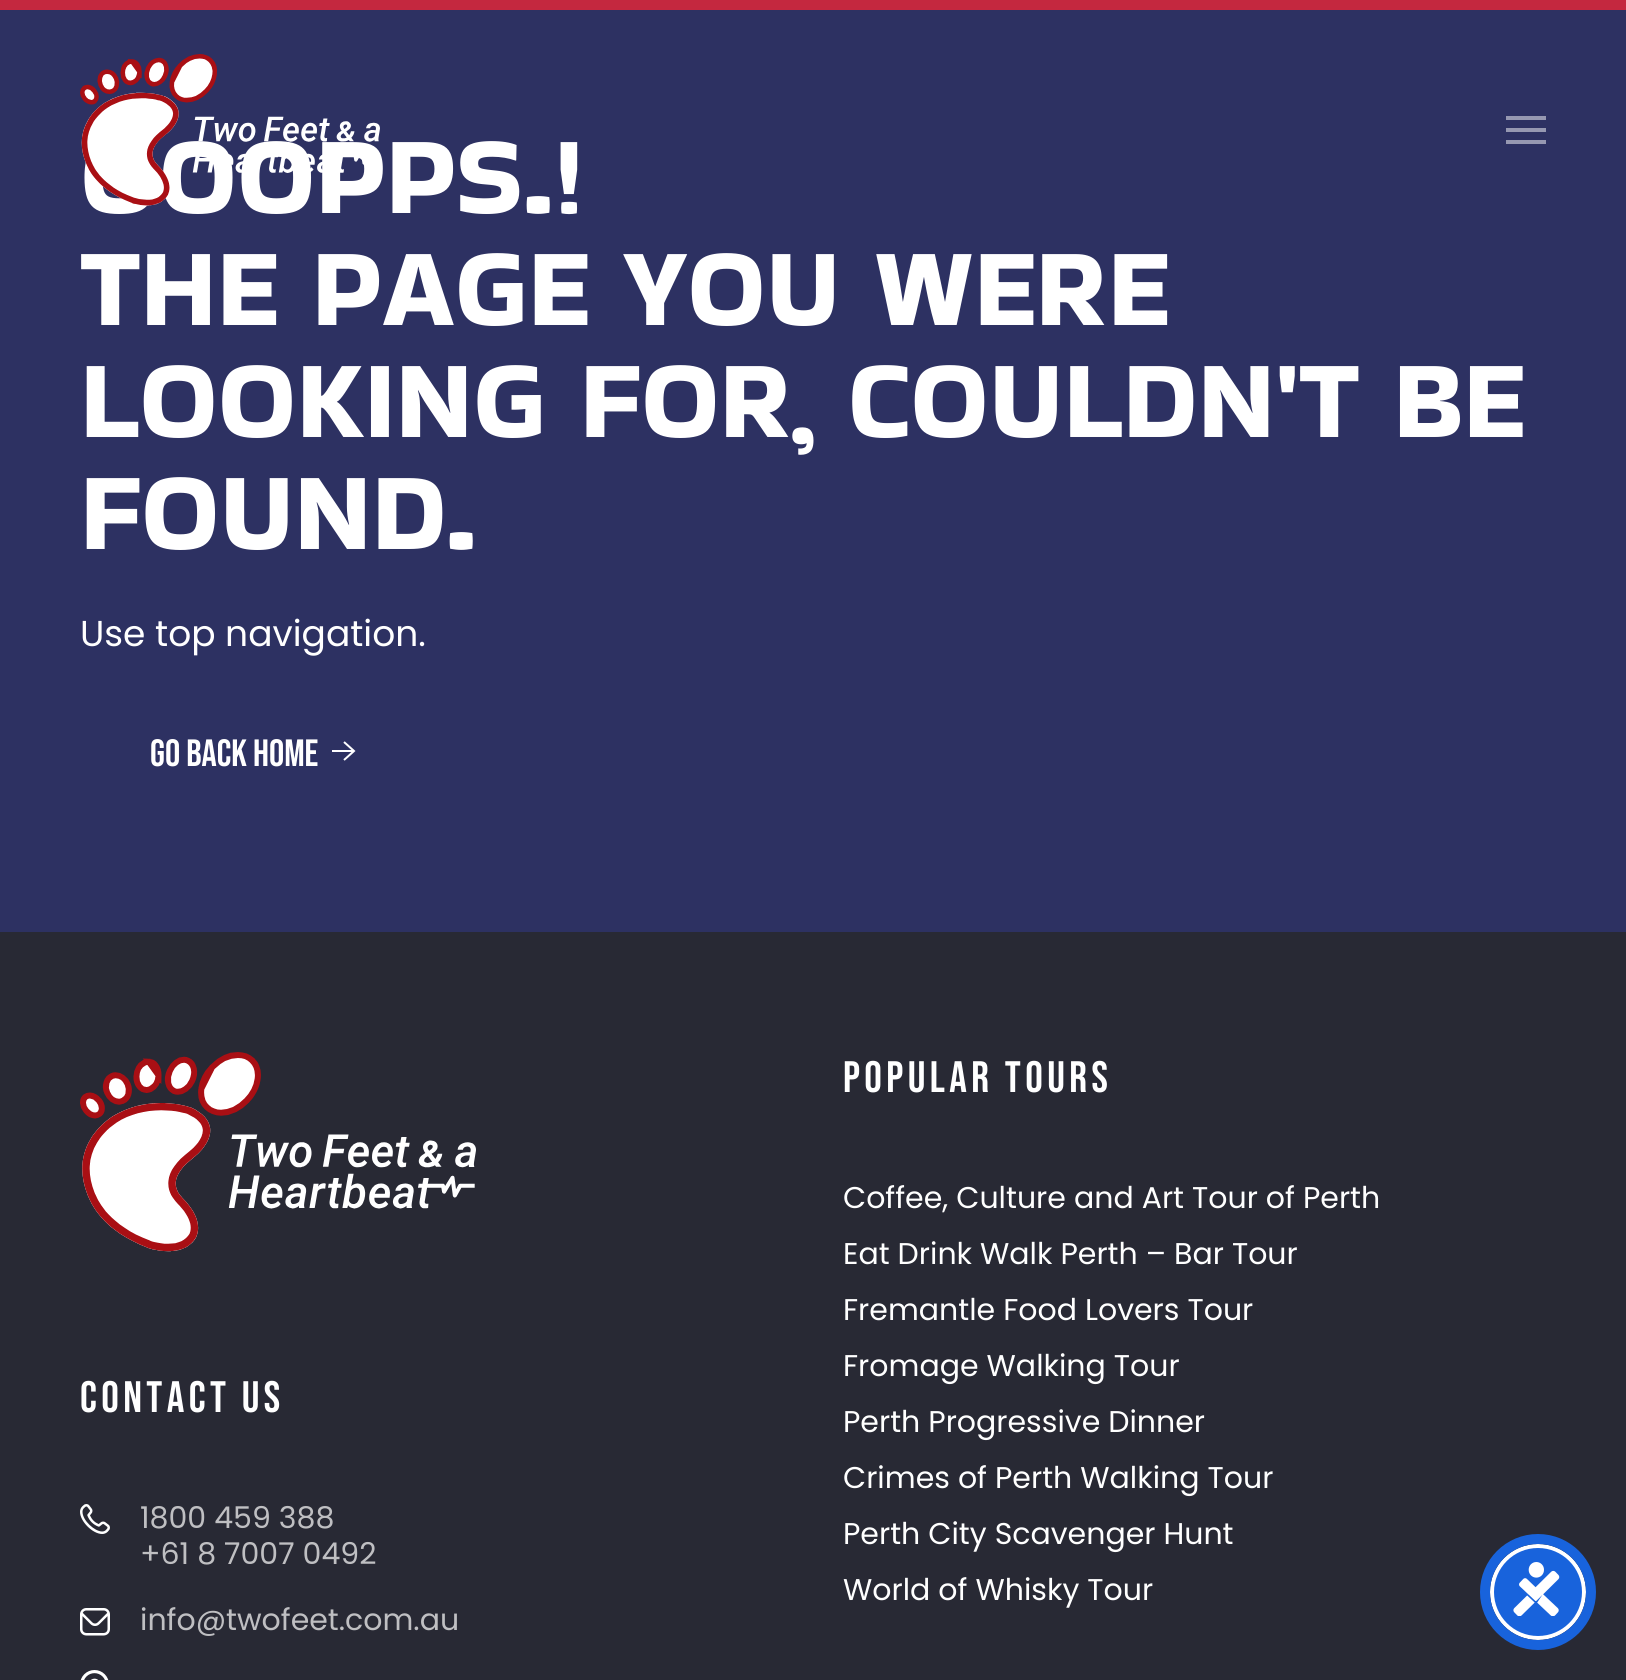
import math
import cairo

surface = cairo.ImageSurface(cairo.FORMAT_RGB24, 1626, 1680)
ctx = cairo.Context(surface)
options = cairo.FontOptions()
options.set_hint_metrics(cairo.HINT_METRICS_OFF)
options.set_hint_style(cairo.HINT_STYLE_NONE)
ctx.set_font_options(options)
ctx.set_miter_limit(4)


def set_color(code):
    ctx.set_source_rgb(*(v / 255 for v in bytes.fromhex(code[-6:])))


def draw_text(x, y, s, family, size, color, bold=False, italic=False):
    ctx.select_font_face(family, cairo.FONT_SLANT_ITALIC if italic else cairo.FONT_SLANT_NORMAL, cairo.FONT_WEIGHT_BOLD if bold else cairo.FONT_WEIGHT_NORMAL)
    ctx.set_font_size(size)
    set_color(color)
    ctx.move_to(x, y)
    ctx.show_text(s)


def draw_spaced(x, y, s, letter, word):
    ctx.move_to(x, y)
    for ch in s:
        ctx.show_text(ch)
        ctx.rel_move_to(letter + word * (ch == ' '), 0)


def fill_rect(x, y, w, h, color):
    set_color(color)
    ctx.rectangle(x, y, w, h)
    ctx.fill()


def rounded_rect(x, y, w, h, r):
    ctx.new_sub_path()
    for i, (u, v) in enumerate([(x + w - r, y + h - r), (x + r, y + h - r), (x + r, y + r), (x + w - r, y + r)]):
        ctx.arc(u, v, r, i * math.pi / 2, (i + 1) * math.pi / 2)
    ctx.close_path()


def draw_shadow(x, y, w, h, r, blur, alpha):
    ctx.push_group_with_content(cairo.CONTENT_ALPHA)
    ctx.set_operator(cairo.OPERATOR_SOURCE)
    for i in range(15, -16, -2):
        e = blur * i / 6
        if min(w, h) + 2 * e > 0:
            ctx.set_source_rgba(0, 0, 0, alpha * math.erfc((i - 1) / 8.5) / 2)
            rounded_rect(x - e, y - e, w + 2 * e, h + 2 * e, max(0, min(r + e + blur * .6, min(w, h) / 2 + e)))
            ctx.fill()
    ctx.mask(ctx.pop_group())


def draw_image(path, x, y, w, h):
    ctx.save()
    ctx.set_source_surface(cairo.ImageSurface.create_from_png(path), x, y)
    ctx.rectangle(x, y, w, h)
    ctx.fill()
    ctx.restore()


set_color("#2d3162")
ctx.paint()
fill_rect(0, 0, 1626, 10, "#c4283f")
draw_text(80, 214, "OOOPPS.!", "Bakbak One", 112, "#ffffff")
draw_image("assets/img1.png", 80, 54, 300, 152)
fill_rect(1506, 116, 40, 4, "#9698b1")
fill_rect(1506, 128, 40, 4, "#9698b1")
fill_rect(1506, 140, 40, 4, "#9698b1")
draw_text(80, 326, "THE PAGE YOU WERE", "Bakbak One", 112, "#ffffff")
draw_text(80, 438, "LOOKING FOR, COULDN'T BE", "Bakbak One", 112, "#ffffff")
draw_text(80, 550, "FOUND.", "Bakbak One", 112, "#ffffff")
draw_text(80, 646, "Use top navigation.", "Poppins", 36, "#ffffff")
draw_text(150, 766, "GO BACK HOME", "Bebas Neue", 38, "#ffffff", bold=True)
ctx.new_path()
ctx.move_to(344, 742)
ctx.line_to(354, 751)
ctx.line_to(344, 760)
ctx.stroke()
fill_rect(332, 750, 22, 2, "#ffffff")
fill_rect(0, 932, 1626, 748, "#282934")
draw_image("assets/img2.png", 80, 1052, 396, 200)
ctx.set_font_size(44)
set_color("#ffffff")
draw_spaced(80, 1412, "CONTACT US", 4.4, 0)
draw_image("assets/img3.png", 80, 1504, 30, 30)
draw_text(140, 1528, "1800 459 388", "Poppins", 30, "#bfbfc2")
draw_text(140, 1564, "+61 8 7007 0492", "Poppins", 30, "#bfbfc2")
draw_image("assets/img4.png", 80, 1608, 30, 28)
draw_text(140, 1630, "info@twofeet.com.au", "Poppins", 30, "#bfbfc2")
draw_image("assets/img5.png", 80, 1670, 29, 10)
ctx.select_font_face("Bebas Neue", cairo.FONT_SLANT_NORMAL, cairo.FONT_WEIGHT_BOLD)
ctx.set_font_size(44)
set_color("#ffffff")
draw_spaced(843, 1092, "POPULAR TOURS", 4.4, 0)
draw_text(843, 1208, "Coffee, Culture and Art Tour of Perth", "Poppins", 30, "#ffffff")
draw_text(843, 1264, "Eat Drink Walk Perth – Bar Tour", "Poppins", 30, "#ffffff")
draw_text(843, 1320, "Fremantle Food Lovers Tour", "Poppins", 30, "#ffffff")
draw_text(843, 1376, "Fromage Walking Tour", "Poppins", 30, "#ffffff")
draw_text(843, 1432, "Perth Progressive Dinner", "Poppins", 30, "#ffffff")
draw_text(843, 1488, "Crimes of Perth Walking Tour", "Poppins", 30, "#ffffff")
draw_text(843, 1544, "Perth City Scavenger Hunt", "Poppins", 30, "#ffffff")
draw_text(843, 1600, "World of Whisky Tour", "Poppins", 30, "#ffffff")
set_color("#5d6494")
draw_shadow(1490, 1548, 96, 96, 48, 4, 0.2)
set_color("#1863dc")
ctx.arc(1538, 1592, 46, 0, 2 * math.pi)
ctx.fill_preserve()
set_color("#ffffff")
ctx.set_line_width(4)
ctx.stroke()
ctx.arc(1538, 1592, 53, 0, 2 * math.pi)
set_color("#1863dc")
ctx.set_line_width(10)
ctx.stroke()
draw_image("assets/img6.png", 1513, 1562, 47, 54)
surface.write_to_png("output.png")
